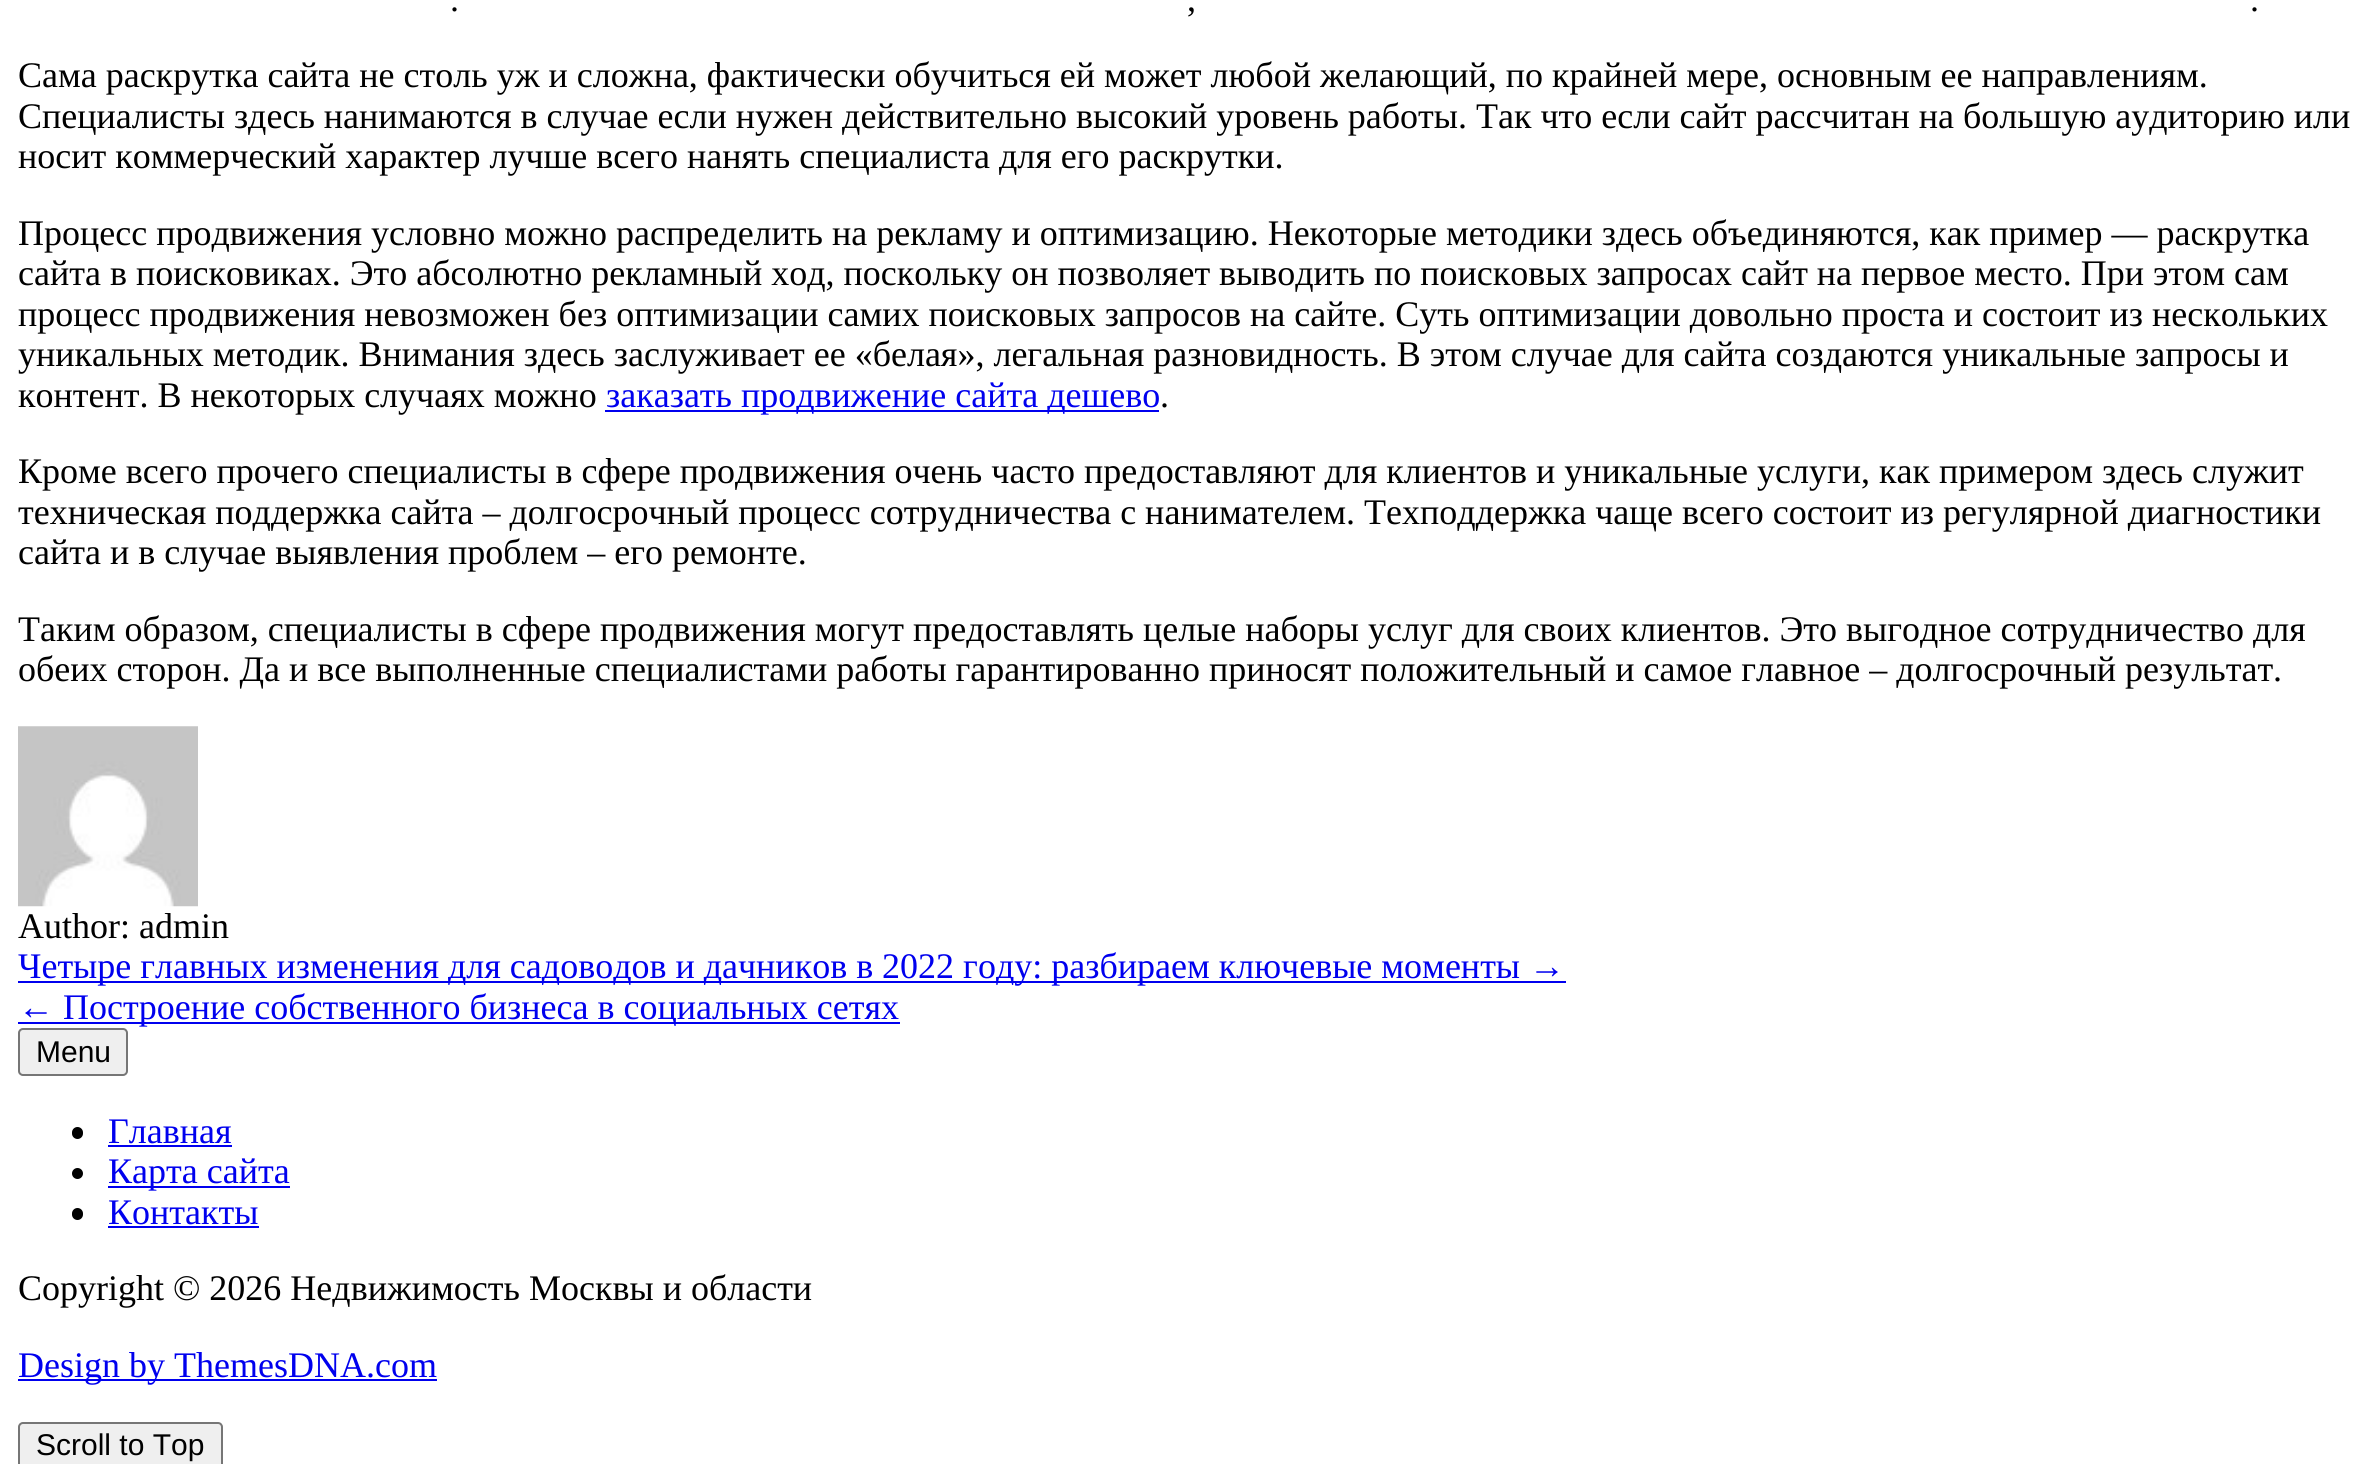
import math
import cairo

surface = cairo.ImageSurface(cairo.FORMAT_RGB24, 2378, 1464)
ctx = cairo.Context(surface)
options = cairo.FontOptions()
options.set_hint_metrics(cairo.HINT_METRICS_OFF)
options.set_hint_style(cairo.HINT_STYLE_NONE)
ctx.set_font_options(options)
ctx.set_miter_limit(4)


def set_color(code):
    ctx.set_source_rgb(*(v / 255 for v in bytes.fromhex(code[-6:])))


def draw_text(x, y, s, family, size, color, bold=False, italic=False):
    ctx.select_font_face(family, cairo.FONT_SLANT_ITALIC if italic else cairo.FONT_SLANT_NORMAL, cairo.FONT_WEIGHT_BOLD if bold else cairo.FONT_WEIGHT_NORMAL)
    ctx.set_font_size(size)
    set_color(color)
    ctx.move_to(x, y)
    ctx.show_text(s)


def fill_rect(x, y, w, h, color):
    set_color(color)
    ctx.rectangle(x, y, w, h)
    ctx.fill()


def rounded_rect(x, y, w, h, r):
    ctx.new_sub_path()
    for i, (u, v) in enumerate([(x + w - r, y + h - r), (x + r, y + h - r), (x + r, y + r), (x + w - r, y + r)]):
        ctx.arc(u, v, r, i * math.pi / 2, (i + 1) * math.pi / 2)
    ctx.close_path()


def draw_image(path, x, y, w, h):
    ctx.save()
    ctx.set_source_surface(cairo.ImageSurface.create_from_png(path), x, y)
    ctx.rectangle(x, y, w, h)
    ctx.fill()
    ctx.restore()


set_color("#ffffff")
ctx.paint()
draw_text(450, 11, ".", "Liberation Serif", 36, "#000000")
draw_text(1187, 11, ",", "Liberation Serif", 36, "#000000")
draw_text(2250, 11, ".", "Liberation Serif", 36, "#000000")
draw_text(18, 87, "Сама раскрутка сайта не столь уж и сложна, фактически обучиться ей может любой желающий, по крайней мере, основным ее направлениям.", "Liberation Serif", 36, "#000000")
draw_text(18, 128, "Специалисты здесь нанимаются в случае если нужен действительно высокий уровень работы. Так что если сайт рассчитан на большую аудиторию или", "Liberation Serif", 36, "#000000")
draw_text(18, 168, "носит коммерческий характер лучше всего нанять специалиста для его раскрутки.", "Liberation Serif", 36, "#000000")
draw_text(18, 245, "Процесс продвижения условно можно распределить на рекламу и оптимизацию. Некоторые методики здесь объединяются, как пример — раскрутка", "Liberation Serif", 36, "#000000")
draw_text(18, 285, "сайта в поисковиках. Это абсолютно рекламный ход, поскольку он позволяет выводить по поисковых запросах сайт на первое место. При этом сам", "Liberation Serif", 36, "#000000")
draw_text(18, 326, "процесс продвижения невозможен без оптимизации самих поисковых запросов на сайте. Суть оптимизации довольно проста и состоит из нескольких", "Liberation Serif", 36, "#000000")
draw_text(18, 366, "уникальных методик. Внимания здесь заслуживает ее «белая», легальная разновидность. В этом случае для сайта создаются уникальные запросы и", "Liberation Serif", 36, "#000000")
draw_text(18, 407, "контент. В некоторых случаях можно", "Liberation Serif", 36, "#000000")
fill_rect(605, 410, 554, 2, "#0000ee")
draw_text(606, 407, "заказать продвижение сайта дешево", "Liberation Serif", 36, "#0000ee")
draw_text(1160, 407, ".", "Liberation Serif", 36, "#000000")
draw_text(18, 483, "Кроме всего прочего специалисты в сфере продвижения очень часто предоставляют для клиентов и уникальные услуги, как примером здесь служит", "Liberation Serif", 36, "#000000")
draw_text(18, 524, "техническая поддержка сайта – долгосрочный процесс сотрудничества с нанимателем. Техподдержка чаще всего состоит из регулярной диагностики", "Liberation Serif", 36, "#000000")
draw_text(18, 564, "сайта и в случае выявления проблем – его ремонте.", "Liberation Serif", 36, "#000000")
draw_text(18, 641, "Таким образом, специалисты в сфере продвижения могут предоставлять целые наборы услуг для своих клиентов. Это выгодное сотрудничество для", "Liberation Serif", 36, "#000000")
draw_text(18, 681, "обеих сторон. Да и все выполненные специалистами работы гарантированно приносят положительный и самое главное – долгосрочный результат.", "Liberation Serif", 36, "#000000")
draw_image("assets/img1.png", 18, 726, 180, 181)
draw_text(18, 938, "Author: admin", "Liberation Serif", 36, "#000000")
fill_rect(18, 981, 1548, 2, "#0000ee")
draw_text(18, 978, "Четыре главных изменения для садоводов и дачников в 2022 году: разбираем ключевые моменты →", "Liberation Serif", 36, "#0000ee")
fill_rect(18, 1022, 882, 2, "#0000ee")
draw_text(18, 1019, "← Построение собственного бизнеса в социальных сетях", "Liberation Serif", 36, "#0000ee")
set_color("#efefef")
rounded_rect(19, 1029, 108, 46, 4)
ctx.fill_preserve()
set_color("#767676")
ctx.stroke()
draw_text(36, 1062, "Menu", "Liberation Sans", 30, "#000000")
rounded_rect(72, 1127, 11, 12, 5.5)
ctx.fill()
draw_text(108, 1143, "Главная", "Liberation Serif", 36, "#0000ee")
fill_rect(108, 1145, 124, 2, "#0000ee")
set_color("#000000")
ctx.new_path()
ctx.arc(77.5, 1173.5, 5.5, 0, 2 * math.pi)
ctx.fill()
fill_rect(108, 1186, 182, 2, "#0000ee")
draw_text(108, 1183, "Карта сайта", "Liberation Serif", 36, "#0000ee")
set_color("#000000")
rounded_rect(72, 1208, 11, 12, 5.5)
ctx.fill()
draw_text(108, 1224, "Контакты", "Liberation Serif", 36, "#0000ee")
fill_rect(108, 1226, 151, 2, "#0000ee")
draw_text(18, 1300, "Copyright © 2026 Недвижимость Москвы и области", "Liberation Serif", 36, "#000000")
fill_rect(18, 1379, 419, 2, "#0000ee")
draw_text(18, 1377, "Design by ThemesDNA.com", "Liberation Serif", 36, "#0000ee")
set_color("#efefef")
rounded_rect(19, 1423, 203, 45, 4)
ctx.fill_preserve()
set_color("#767676")
ctx.stroke()
draw_text(36, 1455, "Scroll to Top", "Liberation Sans", 30, "#000000")
surface.write_to_png("output.png")
